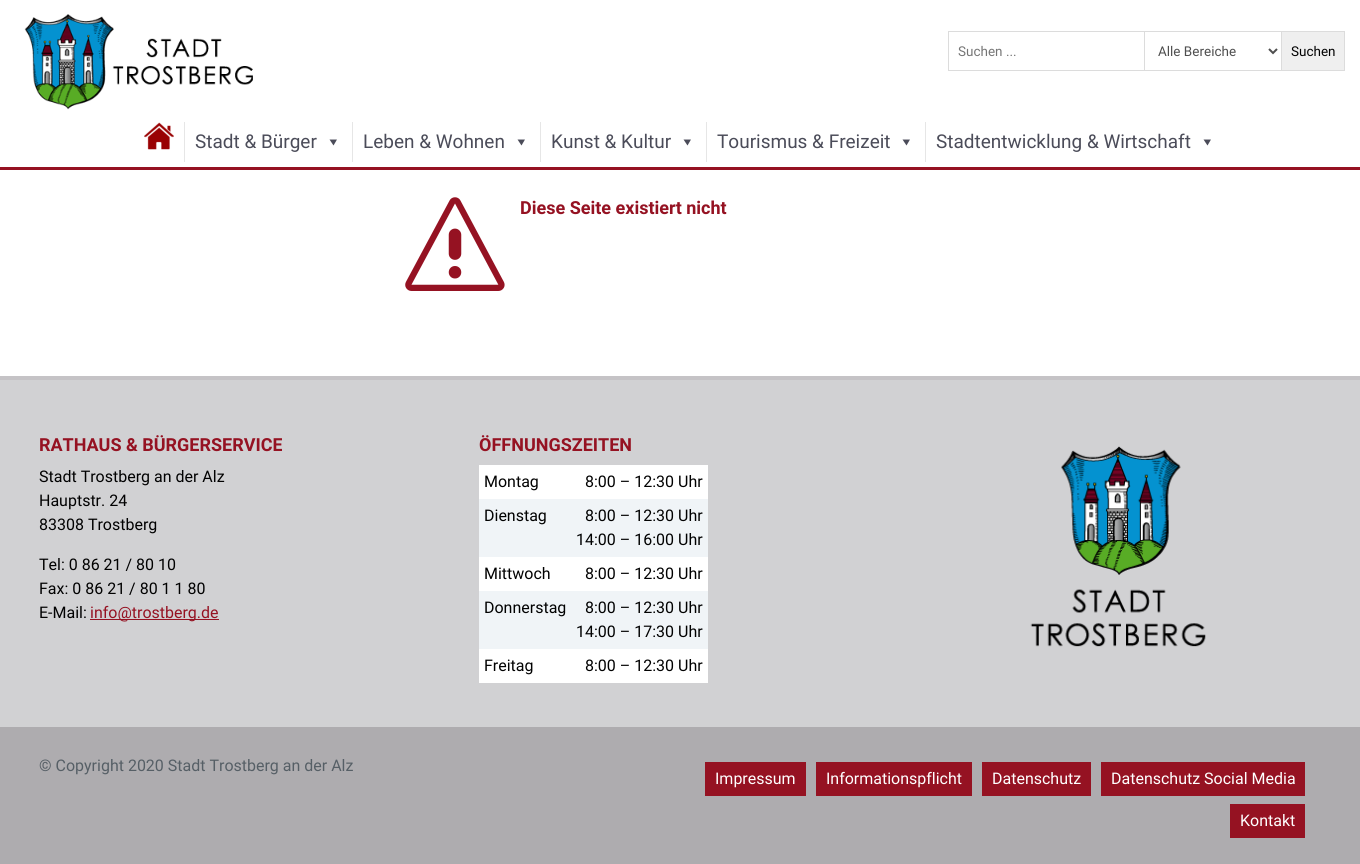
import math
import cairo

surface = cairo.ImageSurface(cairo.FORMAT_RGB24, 1360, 864)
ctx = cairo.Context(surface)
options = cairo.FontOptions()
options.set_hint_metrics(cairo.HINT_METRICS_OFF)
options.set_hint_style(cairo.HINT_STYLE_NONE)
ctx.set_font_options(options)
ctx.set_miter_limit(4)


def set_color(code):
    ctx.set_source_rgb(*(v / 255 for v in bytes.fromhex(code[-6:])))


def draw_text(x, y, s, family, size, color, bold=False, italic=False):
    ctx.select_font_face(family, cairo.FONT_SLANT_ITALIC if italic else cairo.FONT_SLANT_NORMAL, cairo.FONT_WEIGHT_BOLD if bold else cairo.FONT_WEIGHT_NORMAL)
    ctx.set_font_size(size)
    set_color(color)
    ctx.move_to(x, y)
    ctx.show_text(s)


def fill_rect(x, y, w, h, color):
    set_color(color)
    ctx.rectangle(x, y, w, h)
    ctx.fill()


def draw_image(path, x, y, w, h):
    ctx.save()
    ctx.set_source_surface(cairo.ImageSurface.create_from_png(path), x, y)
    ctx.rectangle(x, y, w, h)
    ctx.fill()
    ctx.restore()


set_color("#ffffff")
ctx.paint()
draw_image("assets/img1.png", 24, 14, 229, 96)
ctx.rectangle(948.5, 31.5, 196, 39)
set_color("#dcdcdc")
ctx.set_line_width(1)
ctx.stroke()
draw_text(958, 56, "Suchen ...", "Roboto", 13.5, "#757575")
fill_rect(1145, 31, 200, 1, "#dcdcdc")
fill_rect(1281, 31, 1, 40, "#dcdcdc")
fill_rect(1145, 70, 137, 1, "#dcdcdc")
ctx.new_path()
ctx.move_to(1269, 49)
ctx.line_to(1273, 53)
ctx.line_to(1277, 49)
set_color("#4e4e4e")
ctx.set_line_width(2)
ctx.stroke()
draw_text(1158, 56, "Alle Bereiche", "Roboto", 13.5, "#4e4e4e")
fill_rect(1282, 32, 62, 38, "#efefef")
fill_rect(1344, 31, 1, 40, "#dcdcdc")
fill_rect(1282, 70, 63, 1, "#dcdcdc")
draw_text(1291, 56, "Suchen", "Roboto", 13.5, "#010101")
fill_rect(0, 167, 1360, 3, "#951222")
draw_image("assets/img2.png", 144, 122, 30, 28)
fill_rect(184, 122, 1, 40, "#e6e6e6")
draw_text(195, 148, "Stadt & Bürger", "Roboto", 19, "#4b4c59")
ctx.new_path()
ctx.move_to(337, 139.5)
ctx.line_to(333.5, 145.5)
ctx.line_to(329.5, 139.5)
ctx.close_path()
ctx.fill()
fill_rect(352, 122, 1, 40, "#e6e6e6")
draw_text(363, 148, "Leben & Wohnen", "Roboto", 19, "#4b4c59")
ctx.new_path()
ctx.move_to(525, 139.5)
ctx.line_to(521.5, 145.5)
ctx.line_to(517.5, 139.5)
ctx.close_path()
ctx.fill()
fill_rect(540, 122, 1, 40, "#e6e6e6")
draw_text(551, 148, "Kunst & Kultur", "Roboto", 19, "#4b4c59")
ctx.new_path()
ctx.move_to(691, 139.5)
ctx.line_to(687.5, 145.5)
ctx.line_to(683.5, 139.5)
ctx.close_path()
ctx.fill()
fill_rect(706, 122, 1, 40, "#e6e6e6")
draw_text(717, 148, "Tourismus & Freizeit", "Roboto", 19, "#4b4c59")
ctx.new_path()
ctx.move_to(910, 139.5)
ctx.line_to(906.5, 145.5)
ctx.line_to(902.5, 139.5)
ctx.close_path()
ctx.fill()
fill_rect(925, 122, 1, 40, "#e6e6e6")
draw_text(936, 148, "Stadtentwicklung & Wirtschaft", "Roboto", 19, "#4b4c59")
ctx.new_path()
ctx.move_to(1211, 139.5)
ctx.line_to(1207.5, 145.5)
ctx.line_to(1203.5, 139.5)
ctx.close_path()
ctx.fill()
draw_image("assets/img3.png", 405, 197, 100, 94)
draw_text(520, 214, "Diese Seite existiert nicht", "Roboto", 18, "#951222", bold=True)
fill_rect(0, 380, 1360, 347, "#d1d1d3")
fill_rect(0, 376, 1360, 4, "#c5c3c6")
draw_text(39, 451, "RATHAUS & BÜRGERSERVICE", "Roboto", 18, "#951222", bold=True)
draw_text(39, 482, "Stadt Trostberg an der Alz", "Roboto", 16, "#010101")
draw_text(39, 506, "Hauptstr. 24", "Roboto", 16, "#010101")
draw_text(39, 530, "83308 Trostberg", "Roboto", 16, "#010101")
draw_text(39, 570, "Tel: 0 86 21 / 80 10", "Roboto", 16, "#010101")
draw_text(39, 594, "Fax: 0 86 21 / 80 1 1 80", "Roboto", 16, "#010101")
draw_text(39, 618, "E-Mail:", "Roboto", 16, "#010101")
fill_rect(90, 619, 129, 1, "#951222")
draw_text(90, 618, "info@trostberg.de", "Roboto", 16, "#951222")
draw_text(479, 451, "ÖFFNUNGSZEITEN", "Roboto", 18, "#951222", bold=True)
fill_rect(479, 465, 229, 34, "#ffffff")
draw_text(484, 487, "Montag", "Roboto", 16, "#010101")
draw_text(585, 487, "8:00 – 12:30 Uhr", "Roboto", 16, "#010101")
fill_rect(479, 499, 229, 58, "#f0f4f7")
draw_text(484, 521, "Dienstag", "Roboto", 16, "#010101")
draw_text(585, 521, "8:00 – 12:30 Uhr", "Roboto", 16, "#010101")
draw_text(576, 545, "14:00 – 16:00 Uhr", "Roboto", 16, "#010101")
fill_rect(479, 557, 229, 34, "#ffffff")
draw_text(484, 579, "Mittwoch", "Roboto", 16, "#010101")
draw_text(585, 579, "8:00 – 12:30 Uhr", "Roboto", 16, "#010101")
fill_rect(479, 591, 229, 58, "#f0f4f7")
draw_text(484, 613, "Donnerstag", "Roboto", 16, "#010101")
draw_text(585, 613, "8:00 – 12:30 Uhr", "Roboto", 16, "#010101")
draw_text(576, 637, "14:00 – 17:30 Uhr", "Roboto", 16, "#010101")
fill_rect(479, 649, 229, 34, "#ffffff")
draw_text(484, 671, "Freitag", "Roboto", 16, "#010101")
draw_text(585, 671, "8:00 – 12:30 Uhr", "Roboto", 16, "#010101")
draw_image("assets/img4.png", 1030, 446, 176, 201)
fill_rect(0, 727, 1360, 137, "#aeacaf")
draw_text(39, 771, "© Copyright 2020 Stadt Trostberg an der Alz", "Roboto", 16, "#565f66")
fill_rect(705, 762, 101, 34, "#951222")
draw_text(715, 784, "Impressum", "Roboto", 16, "#ffffff")
fill_rect(816, 762, 156, 34, "#951222")
draw_text(826, 784, "Informationspflicht", "Roboto", 16, "#ffffff")
fill_rect(982, 762, 109, 34, "#951222")
draw_text(992, 784, "Datenschutz", "Roboto", 16, "#ffffff")
fill_rect(1101, 762, 204, 34, "#951222")
draw_text(1111, 784, "Datenschutz Social Media", "Roboto", 16, "#ffffff")
fill_rect(1230, 804, 75, 34, "#951222")
draw_text(1240, 826, "Kontakt", "Roboto", 16, "#ffffff")
surface.write_to_png("output.png")
